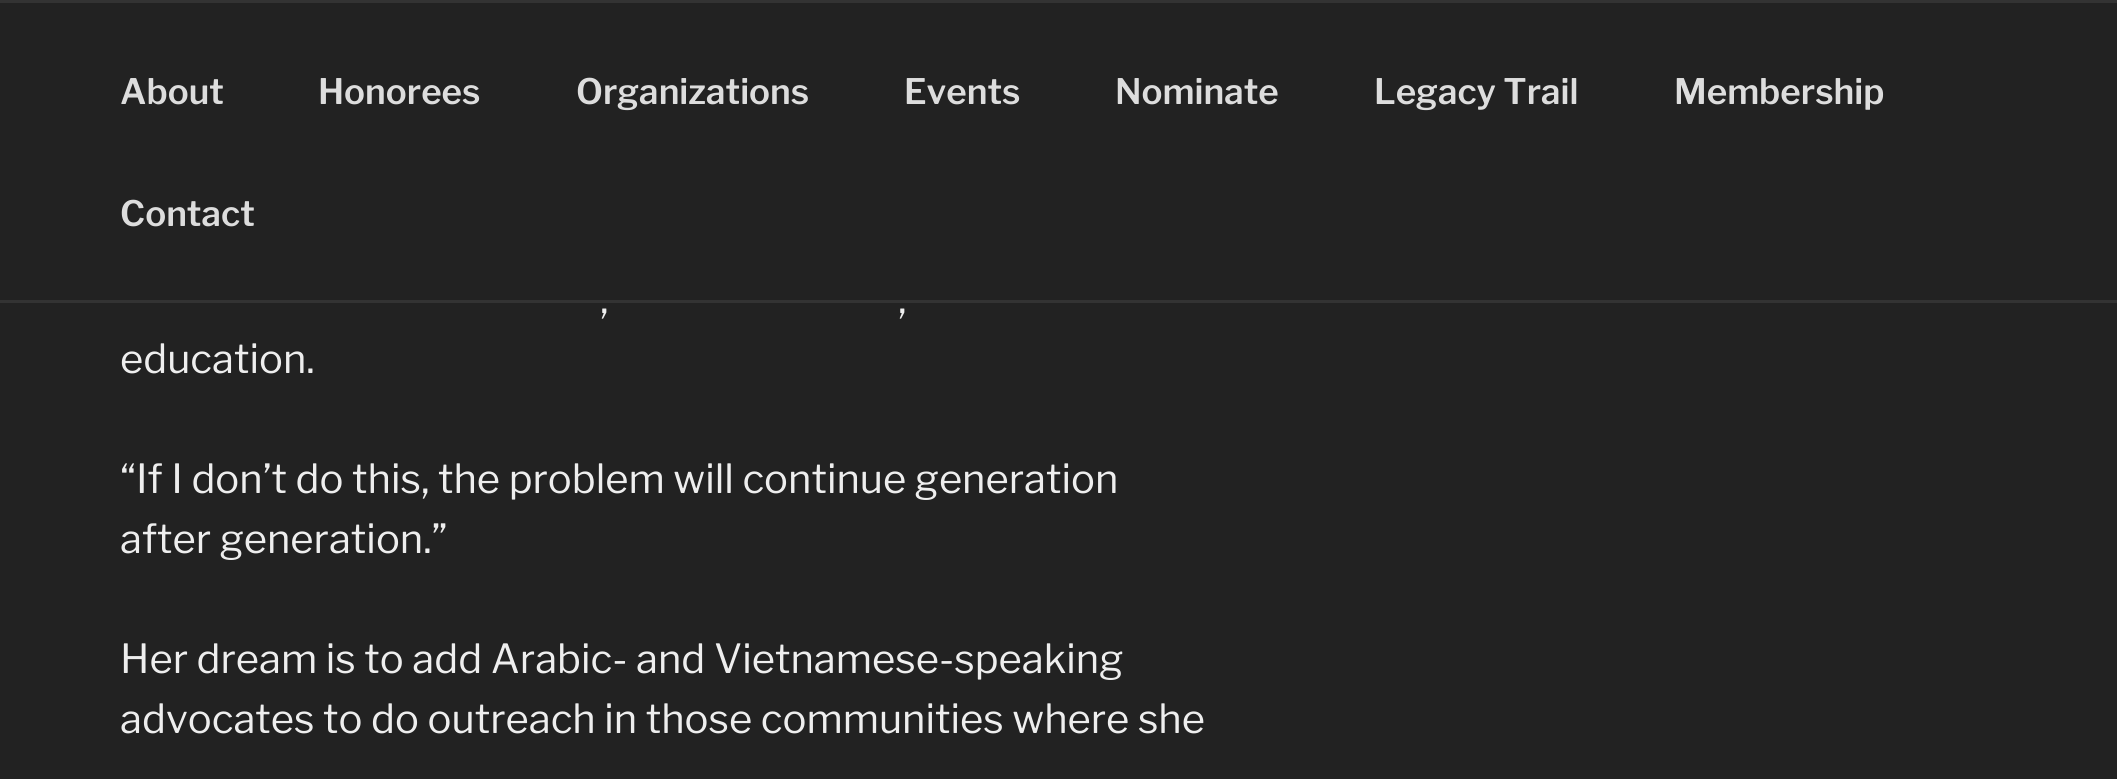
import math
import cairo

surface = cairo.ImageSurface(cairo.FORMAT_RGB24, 2117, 779)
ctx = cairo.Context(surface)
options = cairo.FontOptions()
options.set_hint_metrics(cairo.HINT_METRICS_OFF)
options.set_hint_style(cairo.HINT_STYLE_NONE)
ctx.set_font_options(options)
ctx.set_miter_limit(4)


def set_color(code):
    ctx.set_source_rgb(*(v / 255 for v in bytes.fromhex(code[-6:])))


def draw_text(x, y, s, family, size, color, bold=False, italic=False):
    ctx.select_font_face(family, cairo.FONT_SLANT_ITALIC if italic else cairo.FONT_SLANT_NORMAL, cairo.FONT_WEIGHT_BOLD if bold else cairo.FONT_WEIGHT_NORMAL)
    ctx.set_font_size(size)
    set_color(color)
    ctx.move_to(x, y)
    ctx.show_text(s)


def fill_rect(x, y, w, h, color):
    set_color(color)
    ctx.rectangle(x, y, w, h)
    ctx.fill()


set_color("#222222")
ctx.paint()
fill_rect(0, 0, 2117, 3, "#333333")
fill_rect(0, 300, 2117, 3, "#333333")
draw_text(120, 104, "About", "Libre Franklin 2 Thin", 35, "#dddddd")
draw_text(318, 104, "Honorees", "Libre Franklin 2 Thin", 35, "#dddddd")
draw_text(576, 104, "Organizations", "Libre Franklin 2 Thin", 35, "#dddddd")
draw_text(904, 104, "Events", "Libre Franklin 2 Thin", 35, "#dddddd")
draw_text(1115, 104, "Nominate", "Libre Franklin 2 Thin", 35, "#dddddd")
draw_text(1374, 104, "Legacy Trail", "Libre Franklin 2 Thin", 35, "#dddddd")
draw_text(1674, 104, "Membership", "Libre Franklin 2 Thin", 35, "#dddddd")
draw_text(120, 226, "Contact", "Libre Franklin 2 Thin", 35, "#dddddd")
draw_text(600, 313, ",", "Libre Franklin Thin", 40, "#eeeeee")
draw_text(898, 313, ",", "Libre Franklin Thin", 40, "#eeeeee")
draw_text(120, 373, "education.", "Libre Franklin Thin", 40, "#eeeeee")
draw_text(120, 493, "“If I don’t do this, the problem will continue generation", "Libre Franklin Thin", 40, "#eeeeee")
draw_text(120, 553, "after generation.”", "Libre Franklin Thin", 40, "#eeeeee")
draw_text(120, 673, "Her dream is to add Arabic- and Vietnamese-speaking", "Libre Franklin Thin", 40, "#eeeeee")
draw_text(120, 733, "advocates to do outreach in those communities where she", "Libre Franklin Thin", 40, "#eeeeee")
surface.write_to_png("output.png")
